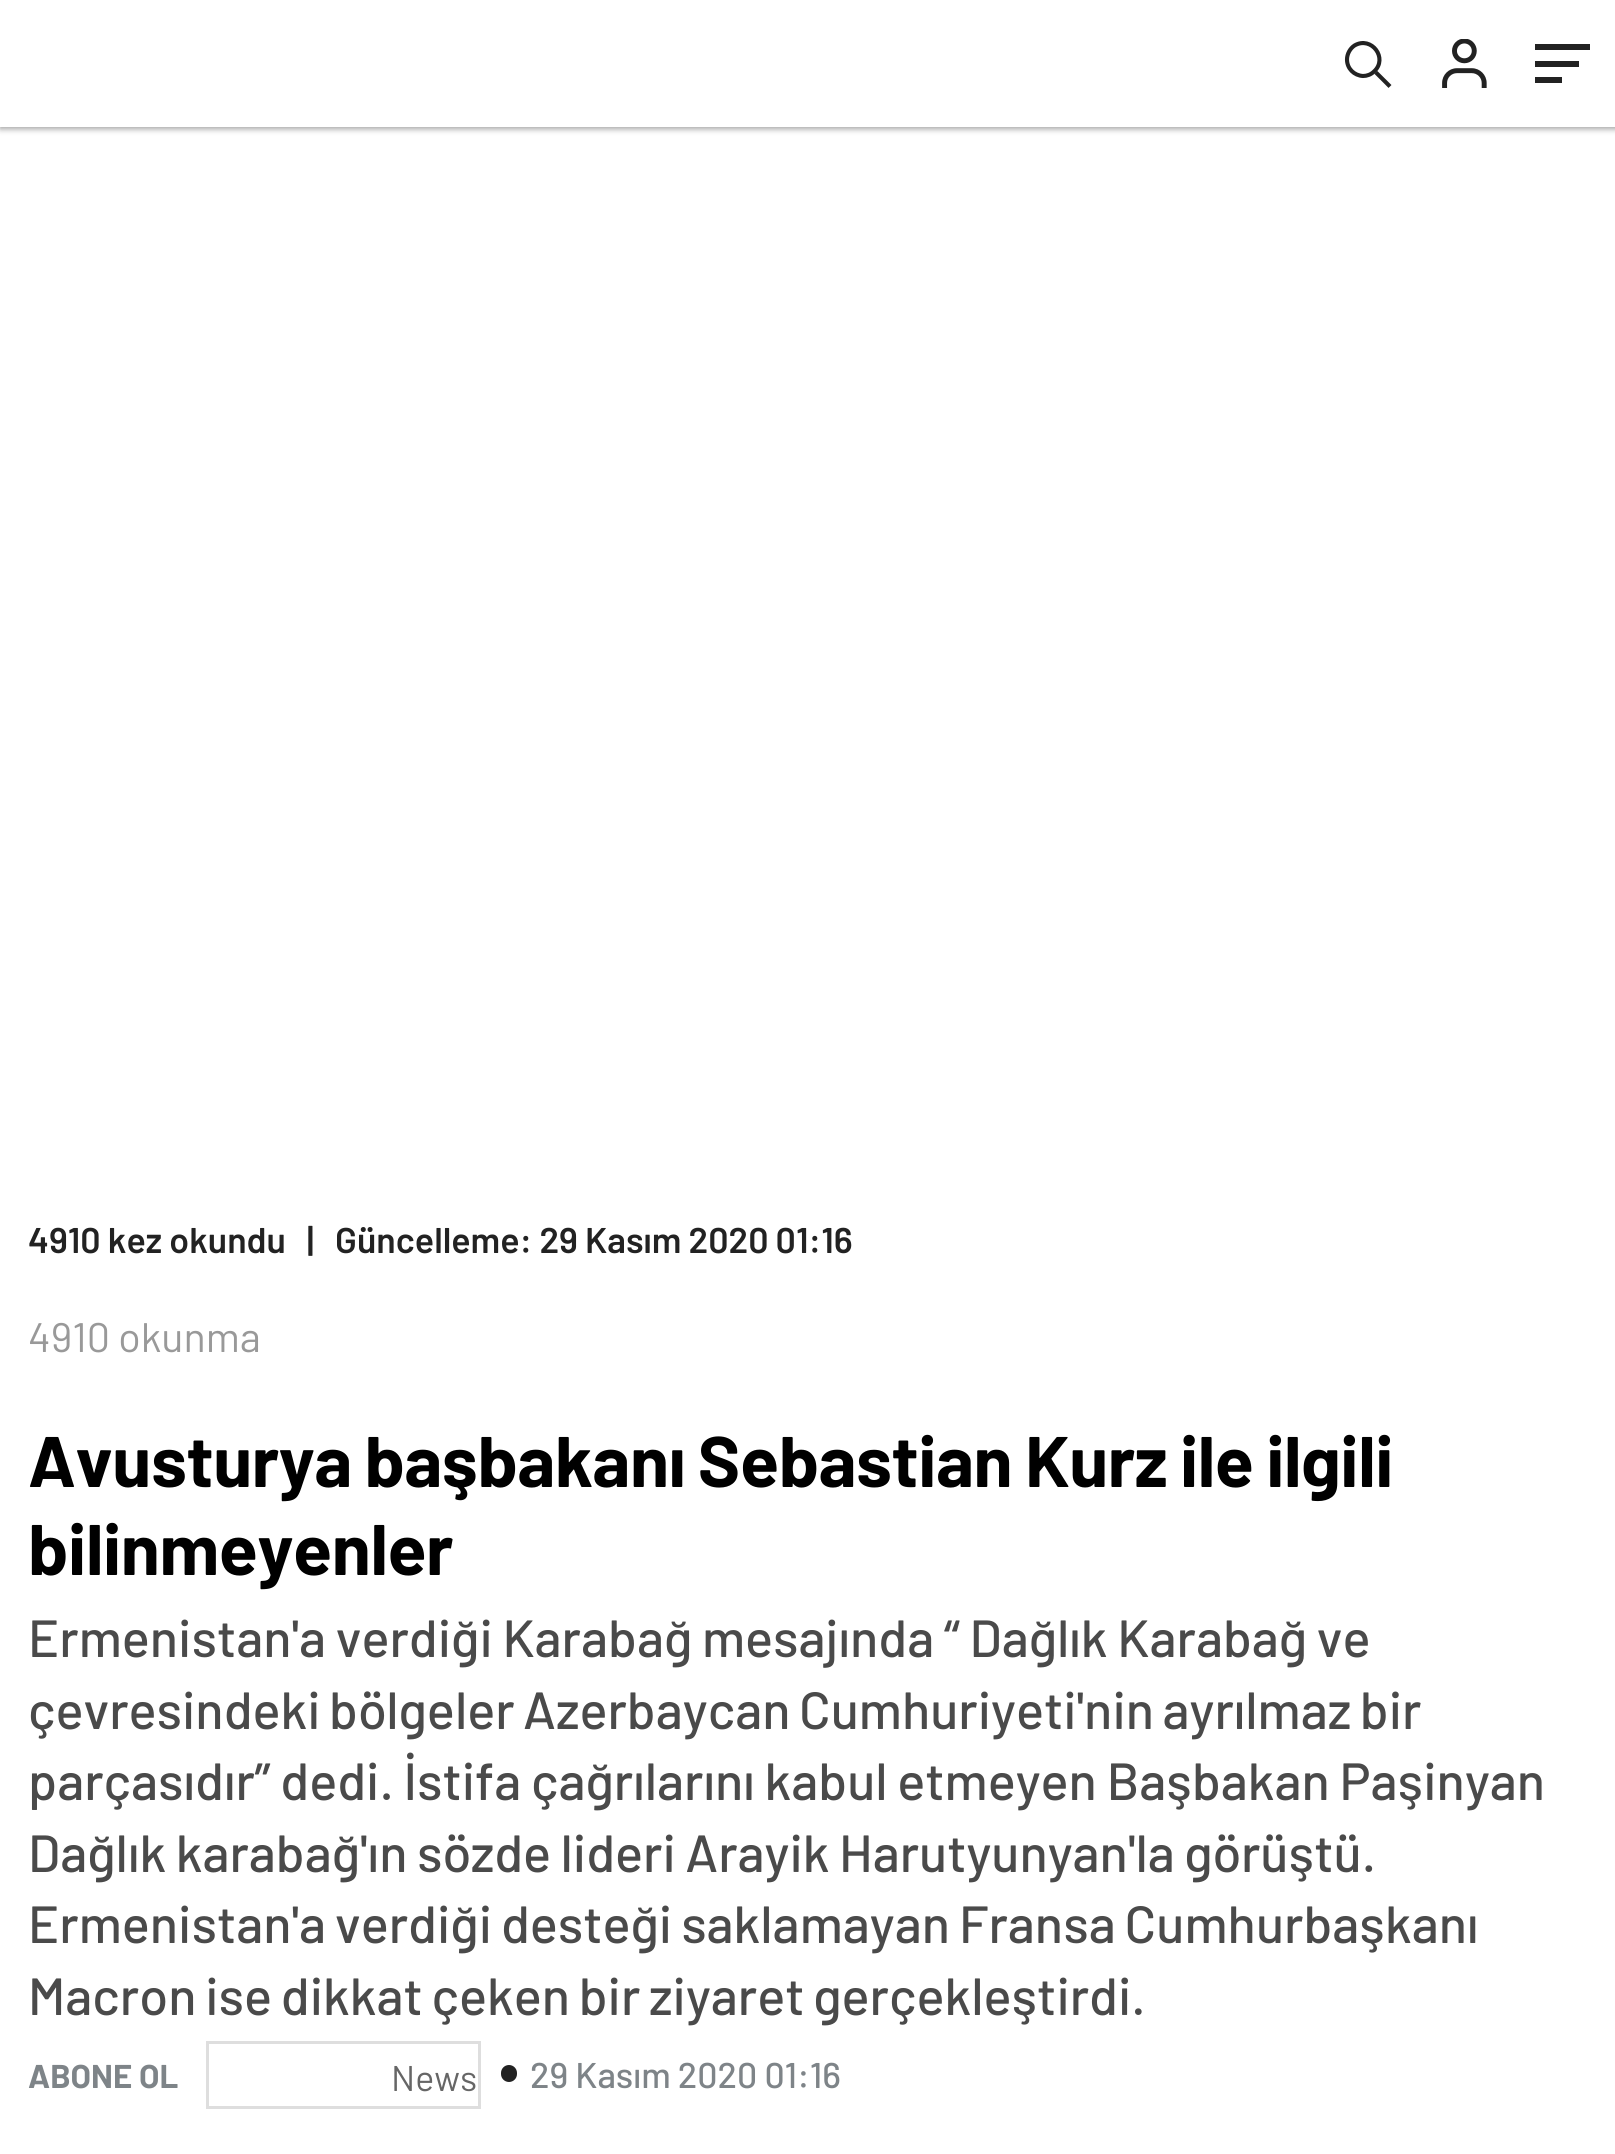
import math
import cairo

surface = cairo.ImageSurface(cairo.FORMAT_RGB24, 1615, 2154)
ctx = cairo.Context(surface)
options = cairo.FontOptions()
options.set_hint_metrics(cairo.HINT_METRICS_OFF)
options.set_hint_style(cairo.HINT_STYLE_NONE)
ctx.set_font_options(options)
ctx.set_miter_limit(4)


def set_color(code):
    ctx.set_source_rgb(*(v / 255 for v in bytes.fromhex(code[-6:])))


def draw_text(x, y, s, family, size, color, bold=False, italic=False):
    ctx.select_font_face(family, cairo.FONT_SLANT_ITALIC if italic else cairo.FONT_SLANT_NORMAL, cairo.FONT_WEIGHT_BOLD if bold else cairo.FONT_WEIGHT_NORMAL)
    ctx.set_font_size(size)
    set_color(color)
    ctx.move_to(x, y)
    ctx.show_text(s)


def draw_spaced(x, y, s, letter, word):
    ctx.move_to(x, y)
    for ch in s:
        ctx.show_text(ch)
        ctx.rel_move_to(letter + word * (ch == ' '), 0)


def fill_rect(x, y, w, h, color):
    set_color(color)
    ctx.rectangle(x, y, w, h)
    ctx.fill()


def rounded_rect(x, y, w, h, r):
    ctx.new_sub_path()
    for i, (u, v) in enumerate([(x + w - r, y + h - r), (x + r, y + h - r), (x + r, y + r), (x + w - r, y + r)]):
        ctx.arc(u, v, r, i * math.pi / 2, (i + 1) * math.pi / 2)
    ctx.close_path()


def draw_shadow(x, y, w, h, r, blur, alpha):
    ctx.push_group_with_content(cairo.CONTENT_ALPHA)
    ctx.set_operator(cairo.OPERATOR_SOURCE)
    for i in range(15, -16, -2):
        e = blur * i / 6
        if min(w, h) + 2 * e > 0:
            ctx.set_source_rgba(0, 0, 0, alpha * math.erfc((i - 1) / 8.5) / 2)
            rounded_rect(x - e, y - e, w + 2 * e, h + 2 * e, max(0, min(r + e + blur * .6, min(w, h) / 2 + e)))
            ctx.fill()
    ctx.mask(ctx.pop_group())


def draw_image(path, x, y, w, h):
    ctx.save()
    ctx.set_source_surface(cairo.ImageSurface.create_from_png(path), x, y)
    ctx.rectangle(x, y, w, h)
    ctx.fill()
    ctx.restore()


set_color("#ffffff")
ctx.paint()
set_color("#000000")
draw_shadow(0, 3, 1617, 126, 0, 3, 0.37)
fill_rect(0, 0, 1615, 127, "#ffffff")
ctx.new_path()
ctx.move_to(1376, 72.5)
ctx.line_to(1390, 86.5)
ctx.close_path()
ctx.move_to(1347, 59.5)
ctx.curve_to(1347, 54, 1350, 48.5, 1354.5, 45.5)
ctx.curve_to(1371.5, 35.5, 1388.5, 58.5, 1374, 71.5)
ctx.curve_to(1371, 74.5, 1367, 76, 1363, 76)
ctx.curve_to(1354, 75.5, 1347, 68.5, 1347, 59.5)
ctx.close_path()
set_color("#222222")
ctx.set_line_width(4.1)
ctx.set_line_cap(cairo.LINE_CAP_ROUND)
ctx.stroke()
draw_image("assets/img1.png", 1442, 39, 45, 49)
fill_rect(1535, 44, 55, 6, "#222222")
fill_rect(1535, 61, 44, 6, "#222222")
fill_rect(1535, 77, 27, 6, "#222222")
draw_text(28, 1253, "4910 kez okundu", "Barlow SemiBold", 35.75, "#222222")
draw_text(307, 1253, "|", "Barlow SemiBold", 35.75, "#222222")
draw_text(335, 1253, "Güncelleme: 29 Kasım 2020 01:16", "Barlow SemiBold", 35.75, "#222222")
draw_text(28, 1352, "4910 okunma", "Barlow", 41.25, "#999999")
ctx.select_font_face("Barlow", cairo.FONT_SLANT_NORMAL, cairo.FONT_WEIGHT_BOLD)
ctx.set_font_size(71.5)
set_color("#000000")
draw_spaced(28, 1487, "Avusturya başbakanı Sebastian Kurz ile ilgili", -0.4, -1.25)
draw_spaced(28, 1575, "bilinmeyenler", -0.4, 0)
ctx.select_font_face("Barlow Medium")
ctx.set_font_size(52.25)
set_color("#4a4a4a")
draw_spaced(28, 1657, "Ermenistan'a verdiği Karabağ mesajında “ Dağlık Karabağ ve", 0, -0.75)
draw_spaced(28, 1729, "çevresindeki bölgeler Azerbaycan Cumhuriyeti'nin ayrılmaz bir", 0, -2)
draw_spaced(28, 1800, "parçasıdır” dedi. İstifa çağrılarını kabul etmeyen Başbakan Paşinyan", 0, -0.75)
draw_spaced(28, 1872, "Dağlık karabağ'ın sözde lideri Arayik Harutyunyan'la görüştü.", 0, -1)
draw_spaced(28, 1943, "Ermenistan'a verdiği desteği saklamayan Fransa Cumhurbaşkanı", 0, -1.5)
draw_spaced(28, 2015, "Macron ise dikkat çeken bir ziyaret gerçekleştirdi.", 0, -1.75)
draw_text(28, 2088, "ABONE OL", "Barlow", 33, "#7e8488", bold=True)
ctx.rectangle(207.5, 2042.5, 272, 65)
set_color("#dedede")
ctx.set_line_width(3)
ctx.set_line_cap(cairo.LINE_CAP_BUTT)
ctx.stroke()
draw_text(391, 2091, "News", "Barlow", 35.75, "#666666")
set_color("#222222")
rounded_rect(501, 2065, 16, 17, 8)
ctx.fill()
draw_text(530, 2088, "29 Kasım 2020 01:16", "Barlow Medium", 35.75, "#7e8488")
surface.write_to_png("output.png")
